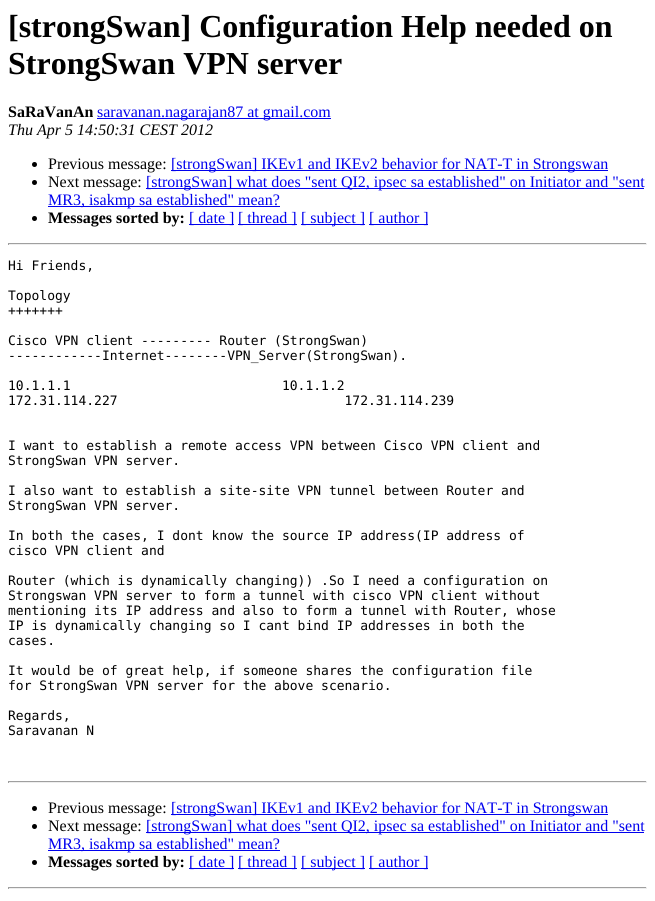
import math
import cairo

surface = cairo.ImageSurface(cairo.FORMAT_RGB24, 655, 901)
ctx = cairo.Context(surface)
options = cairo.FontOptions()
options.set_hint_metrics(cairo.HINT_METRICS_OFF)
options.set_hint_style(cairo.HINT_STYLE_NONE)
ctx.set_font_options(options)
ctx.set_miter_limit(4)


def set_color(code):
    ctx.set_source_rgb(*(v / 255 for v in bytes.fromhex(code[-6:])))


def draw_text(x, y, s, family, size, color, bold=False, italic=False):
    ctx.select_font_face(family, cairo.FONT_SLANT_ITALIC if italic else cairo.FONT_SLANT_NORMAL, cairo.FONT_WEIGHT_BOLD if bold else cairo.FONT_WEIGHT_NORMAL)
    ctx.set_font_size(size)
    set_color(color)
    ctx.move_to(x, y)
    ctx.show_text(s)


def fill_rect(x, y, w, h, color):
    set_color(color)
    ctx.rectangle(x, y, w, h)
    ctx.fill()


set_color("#ffffff")
ctx.paint()
draw_text(8, 37, "[strongSwan] Configuration Help needed on", "Liberation Serif", 32, "#000000", bold=True)
draw_text(8, 74, "StrongSwan VPN server", "Liberation Serif", 32, "#000000", bold=True)
draw_text(8, 117, "SaRaVanAn", "Liberation Serif", 16, "#000000", bold=True)
fill_rect(97, 118, 234, 1, "#0000ee")
draw_text(97, 117, "saravanan.nagarajan87 at gmail.com", "Liberation Serif", 16, "#0000ee")
draw_text(8, 135, "Thu Apr 5 14:50:31 CEST 2012", "Liberation Serif", 16, "#000000", italic=True)
ctx.new_path()
ctx.arc(34.5, 164.5, 2.5, 0, 2 * math.pi)
ctx.fill()
draw_text(48, 169, "Previous message:", "Liberation Serif", 16, "#000000")
fill_rect(171, 170, 437, 1, "#0000ee")
draw_text(171, 169, "[strongSwan] IKEv1 and IKEv2 behavior for NAT-T in Strongswan", "Liberation Serif", 16, "#0000ee")
set_color("#000000")
ctx.new_path()
ctx.arc(34.5, 182.5, 2.5, 0, 2 * math.pi)
ctx.fill()
draw_text(48, 187, "Next message:", "Liberation Serif", 16, "#000000")
fill_rect(146, 188, 498, 1, "#0000ee")
draw_text(146, 187, "[strongSwan] what does \"sent QI2, ipsec sa established\" on Initiator and \"sent", "Liberation Serif", 16, "#0000ee")
fill_rect(48, 206, 232, 1, "#0000ee")
draw_text(48, 205, "MR3, isakmp sa established\" mean?", "Liberation Serif", 16, "#0000ee")
set_color("#000000")
ctx.new_path()
ctx.arc(34.5, 218.5, 2.5, 0, 2 * math.pi)
ctx.fill()
draw_text(48, 223, "Messages sorted by:", "Liberation Serif", 16, "#000000", bold=True)
fill_rect(189, 224, 45, 1, "#0000ee")
draw_text(189, 223, "[ date ]", "Liberation Serif", 16, "#0000ee")
fill_rect(238, 224, 59, 1, "#0000ee")
draw_text(238, 223, "[ thread ]", "Liberation Serif", 16, "#0000ee")
fill_rect(301, 224, 64, 1, "#0000ee")
draw_text(301, 223, "[ subject ]", "Liberation Serif", 16, "#0000ee")
fill_rect(369, 224, 59, 1, "#0000ee")
draw_text(369, 223, "[ author ]", "Liberation Serif", 16, "#0000ee")
fill_rect(8, 243, 639, 1, "#9f9f9f")
fill_rect(646, 243, 1, 2, "#eeeeee")
fill_rect(8, 244, 639, 1, "#eeeeee")
fill_rect(8, 243, 1, 2, "#9f9f9f")
draw_text(8, 270, "Hi Friends,", "DejaVu Sans Mono", 13, "#000000")
draw_text(8, 300, "Topology", "DejaVu Sans Mono", 13, "#000000")
draw_text(8, 315, "+++++++", "DejaVu Sans Mono", 13, "#000000")
draw_text(8, 345, "Cisco VPN client --------- Router (StrongSwan)", "DejaVu Sans Mono", 13, "#000000")
draw_text(8, 360, "------------Internet--------VPN_Server(StrongSwan).", "DejaVu Sans Mono", 13, "#000000")
draw_text(8, 390, "10.1.1.1                           10.1.1.2", "DejaVu Sans Mono", 13, "#000000")
draw_text(8, 405, "172.31.114.227                             172.31.114.239", "DejaVu Sans Mono", 13, "#000000")
draw_text(8, 450, "I want to establish a remote access VPN between Cisco VPN client and", "DejaVu Sans Mono", 13, "#000000")
draw_text(8, 465, "StrongSwan VPN server.", "DejaVu Sans Mono", 13, "#000000")
draw_text(8, 495, "I also want to establish a site-site VPN tunnel between Router and", "DejaVu Sans Mono", 13, "#000000")
draw_text(8, 510, "StrongSwan VPN server.", "DejaVu Sans Mono", 13, "#000000")
draw_text(8, 540, "In both the cases, I dont know the source IP address(IP address of", "DejaVu Sans Mono", 13, "#000000")
draw_text(8, 555, "cisco VPN client and", "DejaVu Sans Mono", 13, "#000000")
draw_text(8, 585, "Router (which is dynamically changing)) .So I need a configuration on", "DejaVu Sans Mono", 13, "#000000")
draw_text(8, 600, "Strongswan VPN server to form a tunnel with cisco VPN client without", "DejaVu Sans Mono", 13, "#000000")
draw_text(8, 615, "mentioning its IP address and also to form a tunnel with Router, whose", "DejaVu Sans Mono", 13, "#000000")
draw_text(8, 630, "IP is dynamically changing so I cant bind IP addresses in both the", "DejaVu Sans Mono", 13, "#000000")
draw_text(8, 645, "cases.", "DejaVu Sans Mono", 13, "#000000")
draw_text(8, 675, "It would be of great help, if someone shares the configuration file", "DejaVu Sans Mono", 13, "#000000")
draw_text(8, 690, "for StrongSwan VPN server for the above scenario.", "DejaVu Sans Mono", 13, "#000000")
draw_text(8, 720, "Regards,", "DejaVu Sans Mono", 13, "#000000")
draw_text(8, 735, "Saravanan N", "DejaVu Sans Mono", 13, "#000000")
fill_rect(8, 781, 639, 1, "#9f9f9f")
fill_rect(646, 781, 1, 2, "#eeeeee")
fill_rect(8, 782, 639, 1, "#eeeeee")
fill_rect(8, 781, 1, 2, "#9f9f9f")
set_color("#000000")
ctx.new_path()
ctx.arc(34.5, 808.5, 2.5, 0, 2 * math.pi)
ctx.fill()
draw_text(48, 813, "Previous message:", "Liberation Serif", 16, "#000000")
fill_rect(171, 814, 437, 1, "#0000ee")
draw_text(171, 813, "[strongSwan] IKEv1 and IKEv2 behavior for NAT-T in Strongswan", "Liberation Serif", 16, "#0000ee")
set_color("#000000")
ctx.new_path()
ctx.arc(34.5, 826.5, 2.5, 0, 2 * math.pi)
ctx.fill()
draw_text(48, 831, "Next message:", "Liberation Serif", 16, "#000000")
fill_rect(146, 832, 498, 1, "#0000ee")
draw_text(146, 831, "[strongSwan] what does \"sent QI2, ipsec sa established\" on Initiator and \"sent", "Liberation Serif", 16, "#0000ee")
fill_rect(48, 850, 232, 1, "#0000ee")
draw_text(48, 849, "MR3, isakmp sa established\" mean?", "Liberation Serif", 16, "#0000ee")
set_color("#000000")
ctx.new_path()
ctx.arc(34.5, 862.5, 2.5, 0, 2 * math.pi)
ctx.fill()
draw_text(48, 867, "Messages sorted by:", "Liberation Serif", 16, "#000000", bold=True)
fill_rect(189, 868, 45, 1, "#0000ee")
draw_text(189, 867, "[ date ]", "Liberation Serif", 16, "#0000ee")
fill_rect(238, 868, 59, 1, "#0000ee")
draw_text(238, 867, "[ thread ]", "Liberation Serif", 16, "#0000ee")
fill_rect(301, 868, 64, 1, "#0000ee")
draw_text(301, 867, "[ subject ]", "Liberation Serif", 16, "#0000ee")
fill_rect(369, 868, 59, 1, "#0000ee")
draw_text(369, 867, "[ author ]", "Liberation Serif", 16, "#0000ee")
fill_rect(8, 887, 639, 1, "#9f9f9f")
fill_rect(646, 887, 1, 2, "#eeeeee")
fill_rect(8, 888, 639, 1, "#eeeeee")
fill_rect(8, 887, 1, 2, "#9f9f9f")
surface.write_to_png("output.png")
